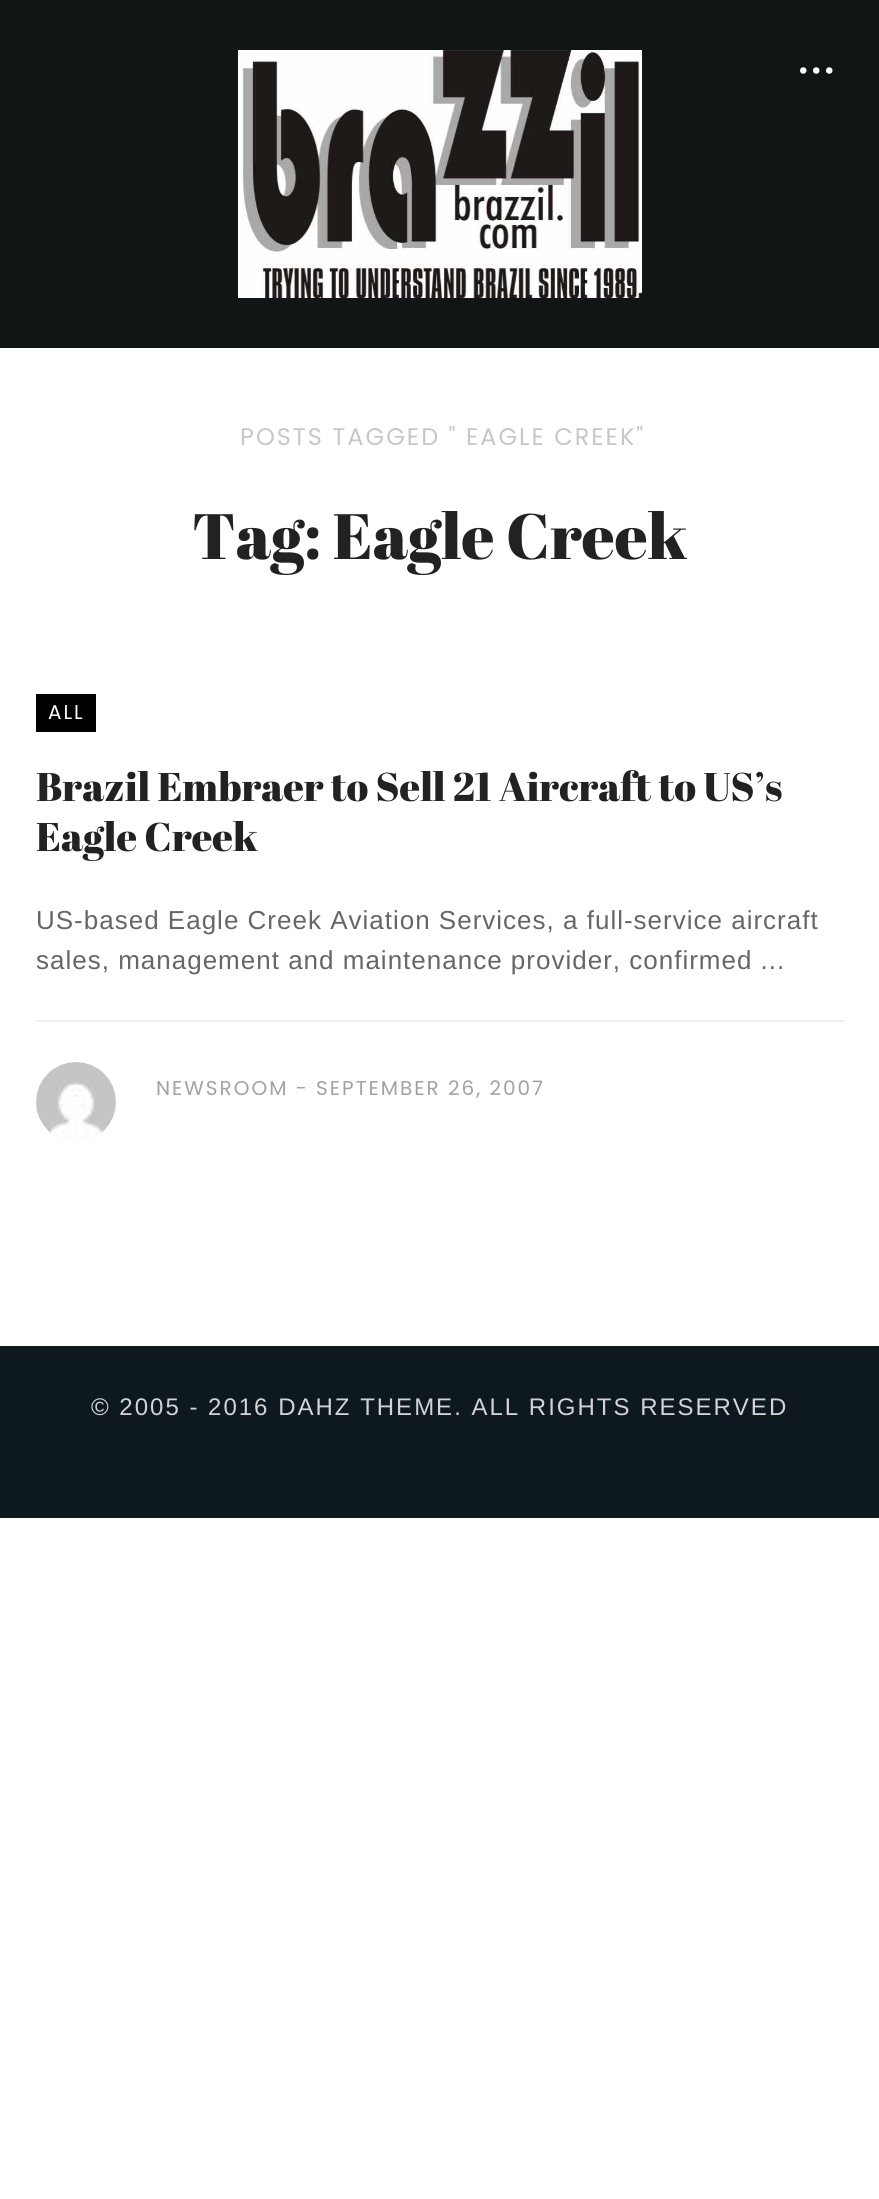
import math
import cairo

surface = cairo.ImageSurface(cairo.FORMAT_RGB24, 879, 2199)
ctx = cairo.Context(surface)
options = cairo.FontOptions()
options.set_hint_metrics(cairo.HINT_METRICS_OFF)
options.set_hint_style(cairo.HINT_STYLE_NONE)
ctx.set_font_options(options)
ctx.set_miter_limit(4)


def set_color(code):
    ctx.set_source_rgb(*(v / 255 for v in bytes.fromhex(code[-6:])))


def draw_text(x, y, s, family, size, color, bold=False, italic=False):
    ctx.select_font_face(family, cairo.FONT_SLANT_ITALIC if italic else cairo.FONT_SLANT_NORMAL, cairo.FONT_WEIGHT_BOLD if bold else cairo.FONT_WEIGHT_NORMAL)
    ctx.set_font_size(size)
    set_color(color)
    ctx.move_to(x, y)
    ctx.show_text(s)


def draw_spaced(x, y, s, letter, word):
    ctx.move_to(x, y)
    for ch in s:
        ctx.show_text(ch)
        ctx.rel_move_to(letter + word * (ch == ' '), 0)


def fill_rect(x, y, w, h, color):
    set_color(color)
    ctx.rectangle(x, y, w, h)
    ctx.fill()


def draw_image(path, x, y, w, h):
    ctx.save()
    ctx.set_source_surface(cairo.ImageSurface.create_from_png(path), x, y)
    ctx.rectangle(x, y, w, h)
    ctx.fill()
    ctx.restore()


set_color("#ffffff")
ctx.paint()
fill_rect(0, 0, 879, 348, "#121516")
draw_image("assets/img1.png", 238, 50, 404, 248)
draw_image("assets/img2.png", 800, 67, 33, 7)
ctx.select_font_face("Poppins")
ctx.set_font_size(24)
set_color("#c7c7c7")
draw_spaced(240, 445, "POSTS TAGGED \" EAGLE CREEK\"", 2, 0)
draw_text(192, 559, "Tag: Eagle Creek", "Abril Fatface", 64, "#222222")
fill_rect(36, 694, 60, 38, "#000000")
ctx.select_font_face("Poppins")
ctx.set_font_size(20)
set_color("#ffffff")
draw_spaced(48, 719, "ALL", 2, 0)
draw_text(36, 801, "Brazil Embraer to Sell 21 Aircraft to US’s", "Abril Fatface", 40, "#222222")
draw_text(36, 851, "Eagle Creek", "Abril Fatface", 40, "#222222")
ctx.select_font_face("Liberation Sans")
ctx.set_font_size(26)
set_color("#666666")
draw_spaced(36, 929, "US-based Eagle Creek Aviation Services, a full-service aircraft", 1, 0)
draw_spaced(36, 969, "sales, management and maintenance provider, confirmed ...", 1, 0)
fill_rect(36, 1020, 808, 2, "#eeeeee")
draw_image("assets/img3.png", 36, 1062, 80, 80)
ctx.select_font_face("Poppins")
ctx.set_font_size(20)
set_color("#a2a2a2")
draw_spaced(156, 1095, "NEWSROOM - SEPTEMBER 26, 2007", 2, 0)
fill_rect(0, 1346, 879, 172, "#0d181f")
ctx.select_font_face("Liberation Sans")
ctx.set_font_size(24)
set_color("#d3d3d3")
draw_spaced(91, 1415, "© 2005 - 2016 DAHZ THEME. ALL RIGHTS RESERVED", 2, 0)
surface.write_to_png("output.png")
